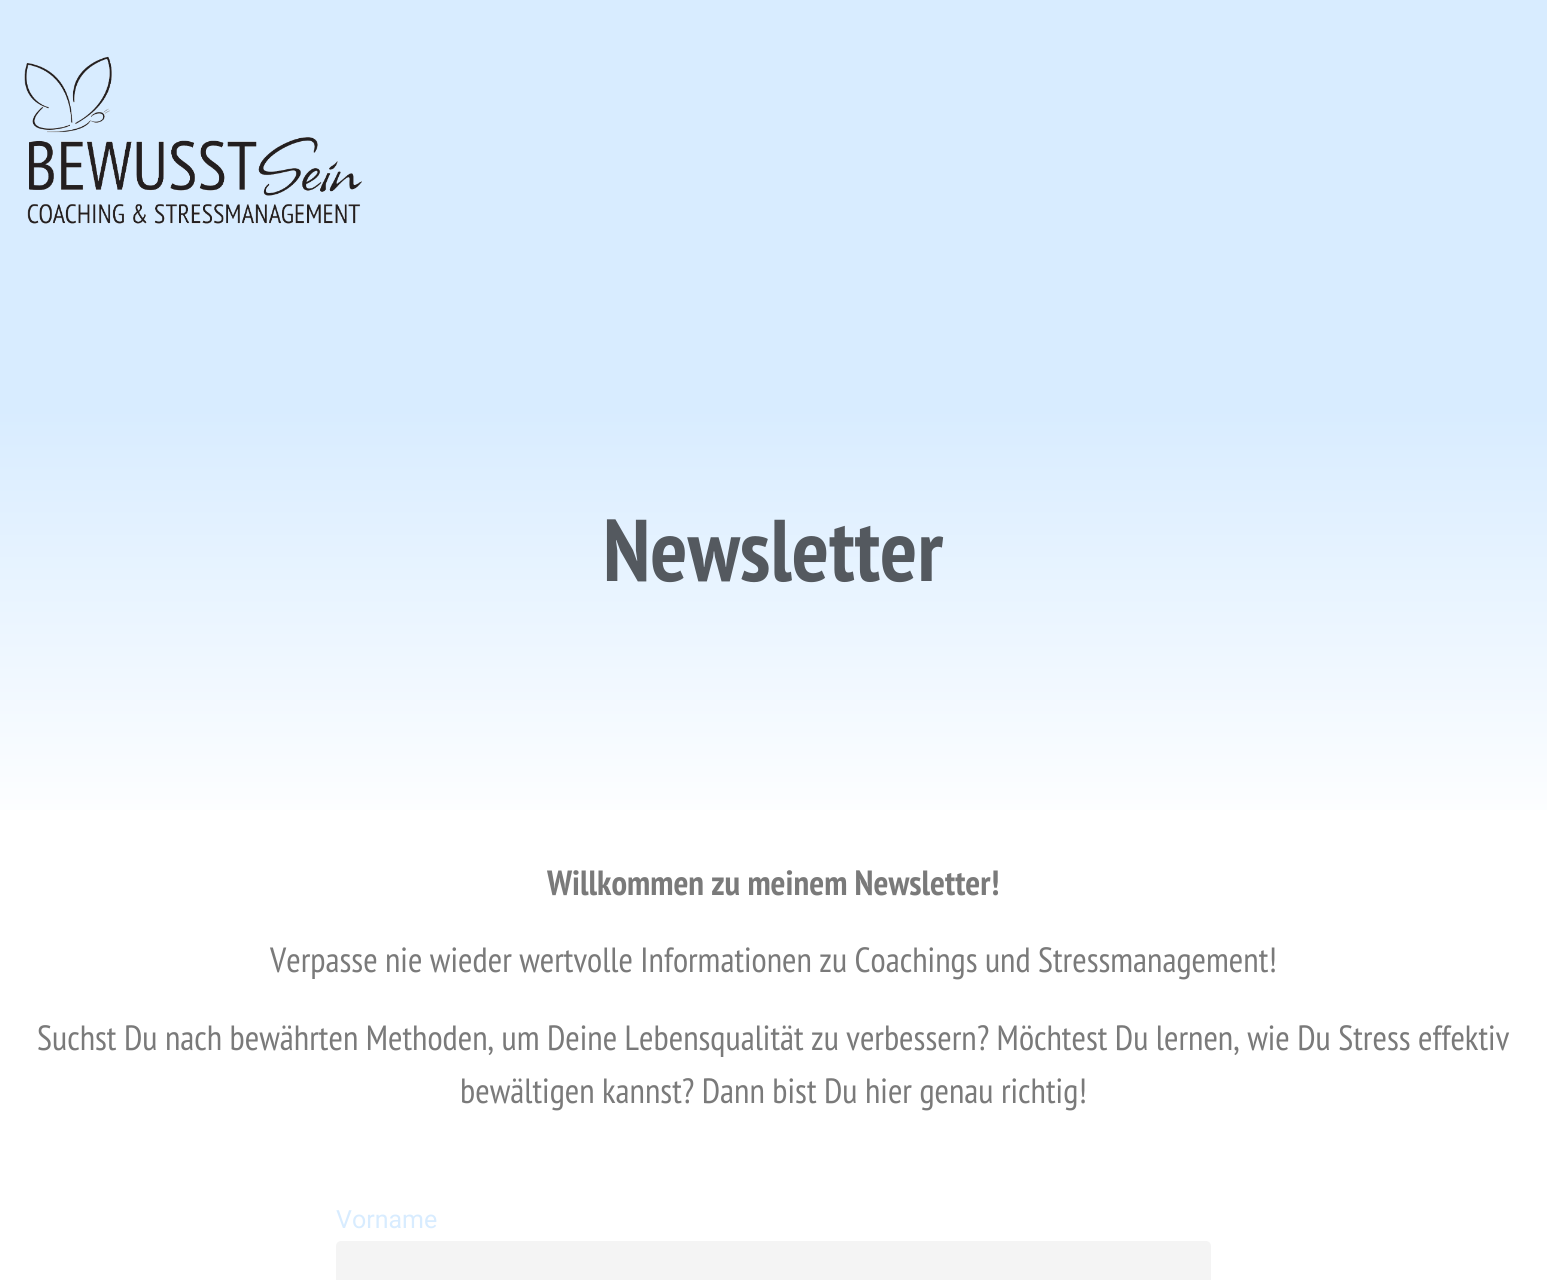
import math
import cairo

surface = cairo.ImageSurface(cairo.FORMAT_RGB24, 1547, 1280)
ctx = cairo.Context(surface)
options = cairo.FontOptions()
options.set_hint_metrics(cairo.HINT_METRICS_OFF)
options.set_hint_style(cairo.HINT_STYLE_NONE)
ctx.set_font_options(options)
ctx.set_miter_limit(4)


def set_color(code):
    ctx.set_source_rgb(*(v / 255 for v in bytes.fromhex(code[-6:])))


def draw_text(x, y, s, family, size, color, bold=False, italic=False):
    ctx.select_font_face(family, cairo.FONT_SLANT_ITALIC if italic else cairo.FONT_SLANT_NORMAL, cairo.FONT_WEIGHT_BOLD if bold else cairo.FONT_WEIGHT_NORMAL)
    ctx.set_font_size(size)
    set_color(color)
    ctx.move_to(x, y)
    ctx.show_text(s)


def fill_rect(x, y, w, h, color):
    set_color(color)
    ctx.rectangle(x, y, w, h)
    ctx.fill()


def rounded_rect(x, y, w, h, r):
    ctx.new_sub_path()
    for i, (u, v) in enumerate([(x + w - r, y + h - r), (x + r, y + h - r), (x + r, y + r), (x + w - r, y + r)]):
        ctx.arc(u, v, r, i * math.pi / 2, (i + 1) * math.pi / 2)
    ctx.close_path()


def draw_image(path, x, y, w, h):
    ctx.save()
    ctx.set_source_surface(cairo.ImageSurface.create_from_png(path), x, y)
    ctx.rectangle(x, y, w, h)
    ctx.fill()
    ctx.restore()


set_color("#ffffff")
ctx.paint()
fill_rect(0, 0, 1547, 294, "#d8ecff")
draw_image("assets/img1.png", 24, 56, 338, 168)
gradient = cairo.LinearGradient(774, 294, 774, 838)
gradient.add_color_stop_rgba(0.21, 0.847, 0.925, 1, 1)
gradient.add_color_stop_rgba(1, 1, 1, 1, 1)
ctx.set_source(gradient)
ctx.rectangle(0, 294, 1547, 516)
ctx.fill()
draw_text(603, 581, "Newsletter", "PT Sans Narrow", 87.5, "#54595f", bold=True)
draw_text(547, 895, "Willkommen zu meinem Newsletter!", "PT Sans Narrow", 35, "#7a7a7a", bold=True)
draw_text(270, 972, "Verpasse nie wieder wertvolle Informationen zu Coachings und Stressmanagement!", "PT Sans Narrow", 35, "#7a7a7a")
draw_text(37, 1050, "Suchst Du nach bewährten Methoden, um Deine Lebensqualität zu verbessern? Möchtest Du lernen, wie Du Stress effektiv", "PT Sans Narrow", 35, "#7a7a7a")
draw_text(460, 1103, "bewältigen kannst? Dann bist Du hier genau richtig!", "PT Sans Narrow", 35, "#7a7a7a")
draw_text(336, 1228, "Vorname", "Roboto", 25, "#d8ecff")
set_color("#f4f4f4")
rounded_rect(336, 1241, 875, 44, 5)
ctx.fill()
surface.write_to_png("output.png")
